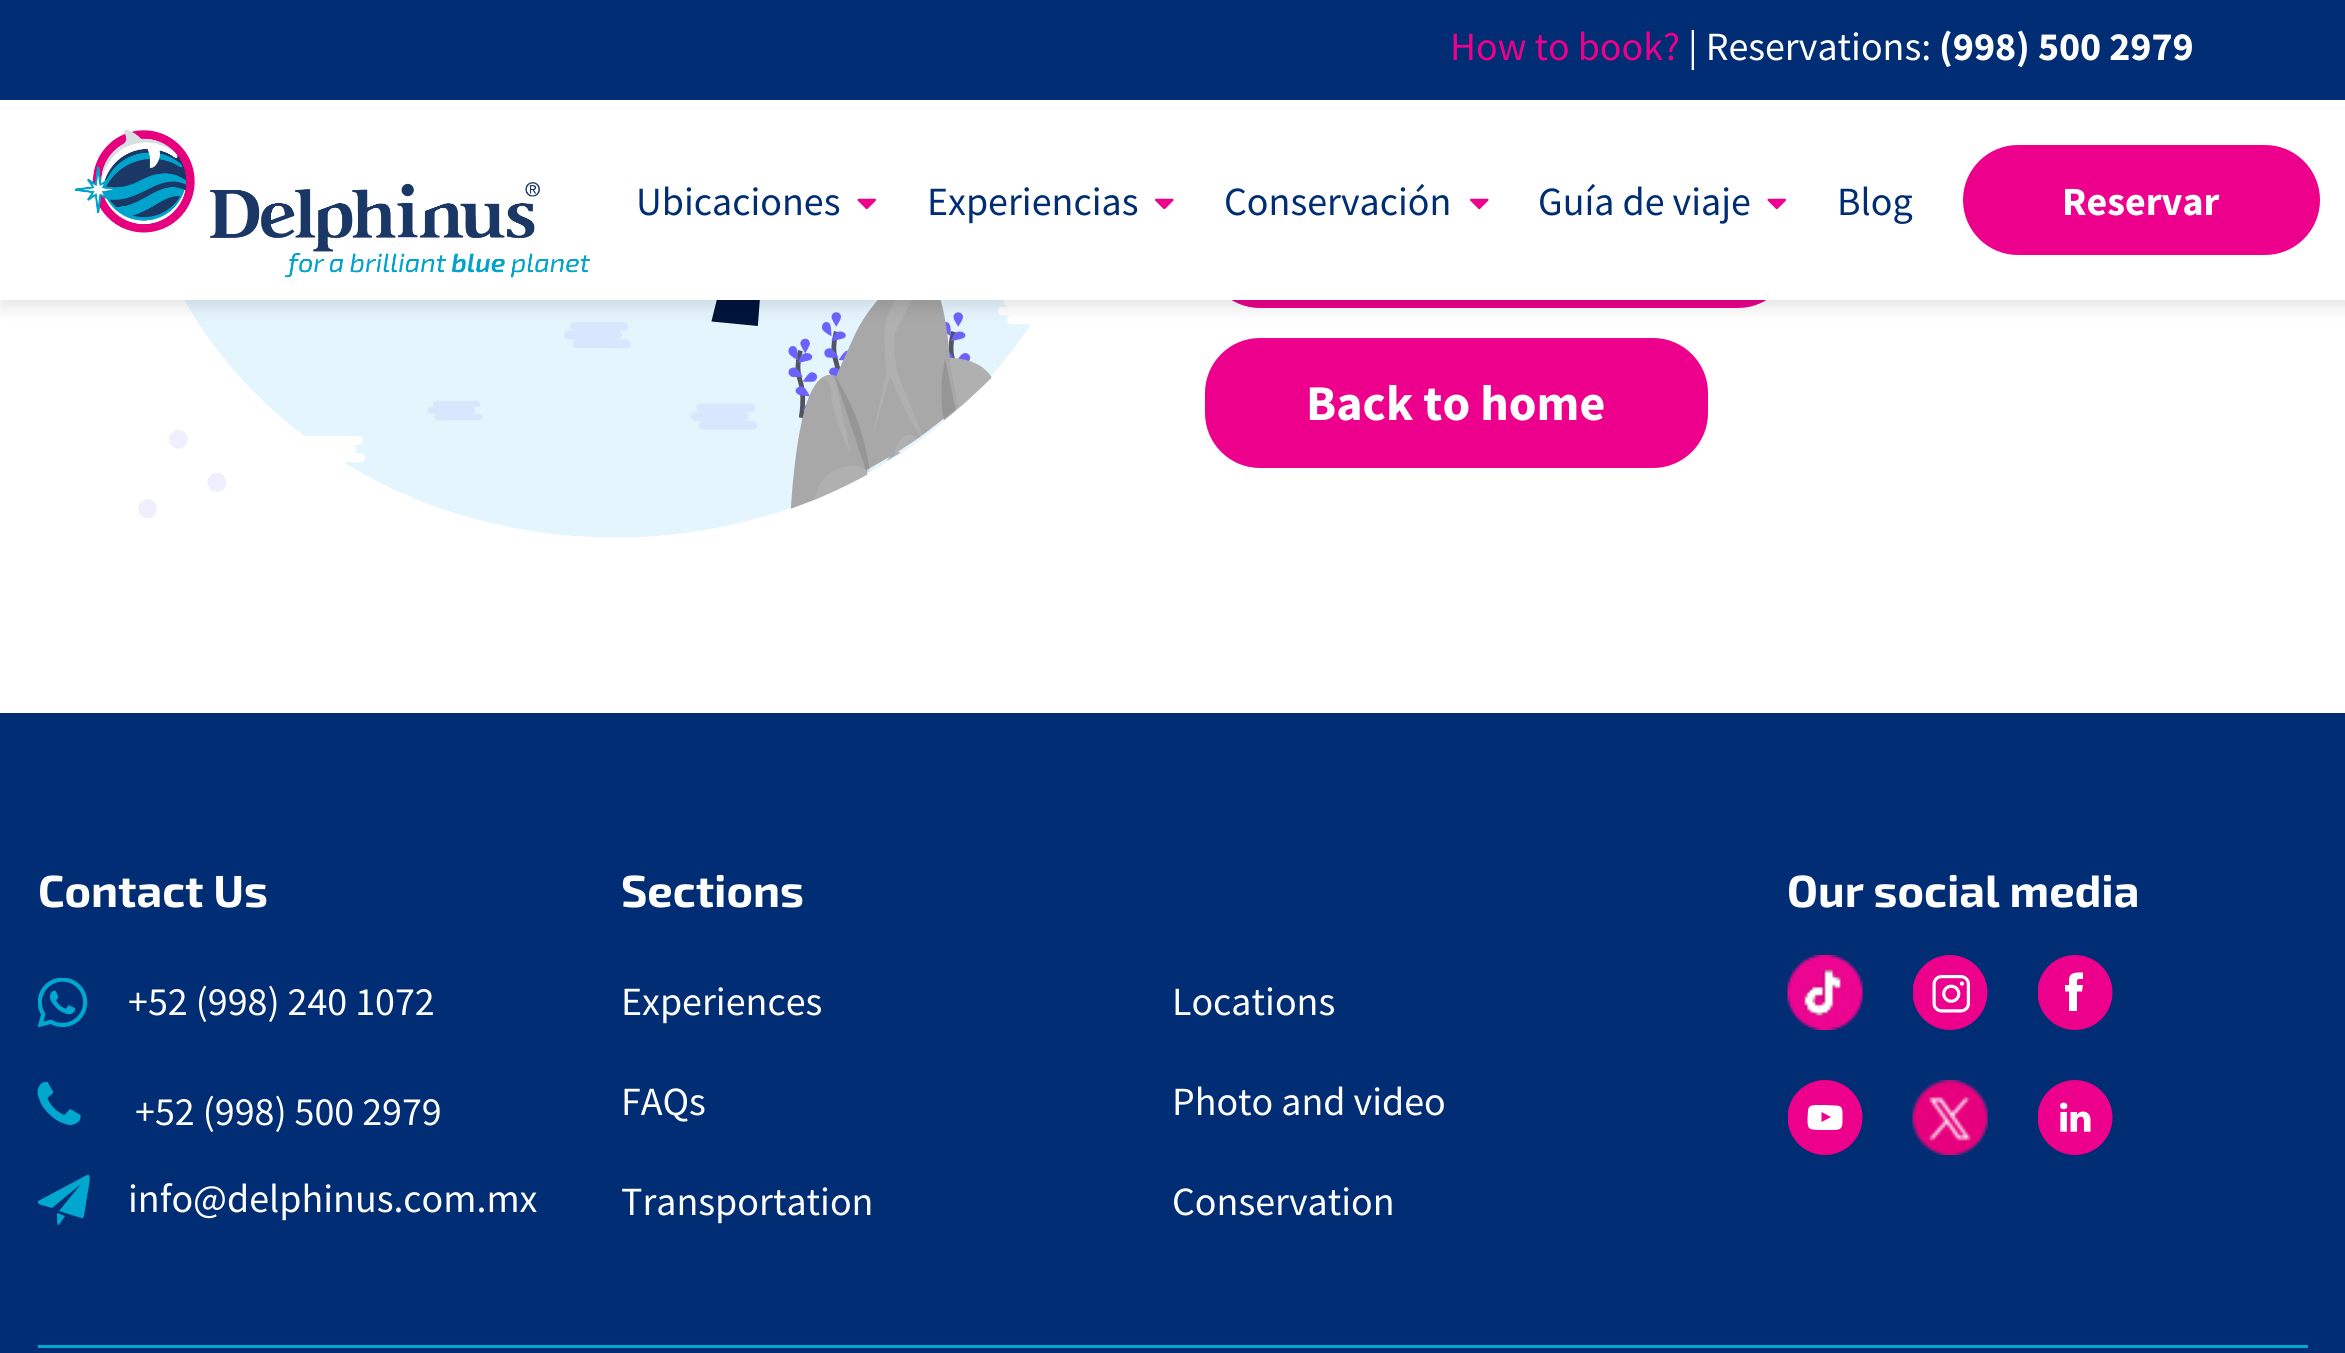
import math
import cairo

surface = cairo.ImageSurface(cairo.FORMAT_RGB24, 2345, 1353)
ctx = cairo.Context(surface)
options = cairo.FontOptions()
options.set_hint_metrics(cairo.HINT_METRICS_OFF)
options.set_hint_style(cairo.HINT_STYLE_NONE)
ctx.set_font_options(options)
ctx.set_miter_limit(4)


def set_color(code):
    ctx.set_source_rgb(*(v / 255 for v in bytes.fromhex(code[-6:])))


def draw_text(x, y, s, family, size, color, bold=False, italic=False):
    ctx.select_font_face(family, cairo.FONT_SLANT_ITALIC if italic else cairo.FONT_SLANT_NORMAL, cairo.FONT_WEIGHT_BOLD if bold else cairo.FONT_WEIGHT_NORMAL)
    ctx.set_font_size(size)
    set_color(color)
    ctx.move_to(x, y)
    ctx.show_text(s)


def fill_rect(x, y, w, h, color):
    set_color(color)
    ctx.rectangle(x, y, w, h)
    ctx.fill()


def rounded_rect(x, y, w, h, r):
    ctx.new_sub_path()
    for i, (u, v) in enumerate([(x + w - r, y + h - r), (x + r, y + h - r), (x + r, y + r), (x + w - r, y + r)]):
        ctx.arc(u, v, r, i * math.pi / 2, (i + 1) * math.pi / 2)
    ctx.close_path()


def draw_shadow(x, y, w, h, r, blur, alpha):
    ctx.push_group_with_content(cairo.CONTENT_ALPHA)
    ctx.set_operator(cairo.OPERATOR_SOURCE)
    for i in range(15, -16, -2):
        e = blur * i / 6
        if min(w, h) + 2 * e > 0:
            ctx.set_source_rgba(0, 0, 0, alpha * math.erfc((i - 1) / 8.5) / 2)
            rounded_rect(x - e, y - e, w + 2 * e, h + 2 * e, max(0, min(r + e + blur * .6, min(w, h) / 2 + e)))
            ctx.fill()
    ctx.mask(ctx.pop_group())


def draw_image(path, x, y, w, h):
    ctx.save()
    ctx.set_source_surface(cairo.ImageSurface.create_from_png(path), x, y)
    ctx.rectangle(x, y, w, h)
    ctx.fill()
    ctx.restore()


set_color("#ffffff")
ctx.paint()
draw_image("assets/img4.png", 138, 300, 893, 237)
set_color("#ec008c")
rounded_rect(1206.5, 179.5, 585, 127, 53.5)
ctx.fill_preserve()
ctx.set_line_width(3)
ctx.stroke()
set_color("#000000")
draw_shadow(0, 3, 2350, 305, 0, 7.5, 0.1)
fill_rect(0, 100, 2345, 200, "#ffffff")
fill_rect(0, 0, 2345, 100, "#002d73")
draw_text(1450, 60, "How to book?", "Source Sans Pro", 40, "#ec008c")
draw_text(1688, 60, "| Reservations:", "Source Sans Pro", 40, "#ffffff")
draw_text(1939, 60, "(998) 500 2979", "Source Sans Pro", 40, "#ffffff", bold=True)
draw_image("assets/img1.png", 75, 130, 515, 148)
draw_text(636, 215, "Ubicaciones", "Source Sans Pro", 40, "#002d73")
draw_image("assets/img2.png", 857, 198, 19, 12)
draw_text(927, 215, "Experiencias", "Source Sans Pro", 40, "#002d73")
draw_image("assets/img3.png", 1155, 198, 19, 12)
draw_text(1224, 215, "Conservación", "Source Sans Pro", 40, "#002d73")
draw_image("assets/img3.png", 1470, 198, 19, 12)
draw_text(1538, 215, "Guía de viaje", "Source Sans Pro", 40, "#002d73")
draw_image("assets/img2.png", 1767, 198, 19, 12)
draw_text(1837, 215, "Blog", "Source Sans Pro", 40, "#002d73")
set_color("#ec008c")
rounded_rect(1963, 145, 357, 110, 55)
ctx.fill()
draw_text(2062, 215, "Reservar", "Source Sans Pro", 40, "#ffffff", bold=True)
set_color("#ec008c")
rounded_rect(1206.5, 339.5, 500, 127, 53.5)
ctx.fill_preserve()
ctx.stroke()
draw_text(1306, 420, "Back to home", "Source Sans Pro", 50, "#ffffff", bold=True)
fill_rect(0, 713, 2345, 640, "#002d73")
draw_text(38, 907, "Contact Us", "Exo 2", 45, "#ffffff", bold=True)
draw_image("assets/img5.png", 38, 978, 50, 50)
draw_text(128, 1015, "+52 (998) 240 1072", "Source Sans Pro", 40, "#ffffff")
draw_image("assets/img6.png", 37, 1081, 44, 44)
draw_text(135, 1125, "+52 (998) 500 2979", "Source Sans Pro", 40, "#ffffff")
ctx.save()
ctx.rectangle(38, 1175, 52, 50)
ctx.clip()
set_color("#00a7ce")
ctx.new_path()
ctx.move_to(57, 1213)
ctx.line_to(65, 1216)
ctx.curve_to(57, 1228, 57, 1229, 57, 1213)
ctx.close_path()
ctx.move_to(87, 1175)
ctx.curve_to(92, 1173, 89, 1185, 87, 1197)
ctx.line_to(85, 1210)
ctx.curve_to(83, 1219, 85, 1219, 78, 1217)
ctx.line_to(59, 1211)
ctx.line_to(81, 1184)
ctx.line_to(52, 1208)
ctx.curve_to(50, 1207, 33, 1204, 38, 1201)
ctx.close_path()
ctx.fill()
ctx.restore()
draw_text(128, 1212, "info@delphinus.com.mx", "Source Sans Pro", 40, "#ffffff")
draw_text(621, 907, "Sections", "Exo 2", 45, "#ffffff", bold=True)
draw_text(621, 1015, "Experiences", "Source Sans Pro", 40, "#ffffff")
draw_text(1172, 1015, "Locations", "Source Sans Pro", 40, "#ffffff")
draw_text(621, 1115, "FAQs", "Source Sans Pro", 40, "#ffffff")
draw_text(1172, 1115, "Photo and video", "Source Sans Pro", 40, "#ffffff")
draw_text(621, 1215, "Transportation", "Source Sans Pro", 40, "#ffffff")
draw_text(1172, 1215, "Conservation", "Source Sans Pro", 40, "#ffffff")
draw_text(1787, 907, "Our social media", "Exo 2", 45, "#ffffff", bold=True)
draw_image("assets/img7.png", 1787, 955, 76, 75)
draw_image("assets/img8.png", 1913, 955, 75, 75)
ctx.save()
ctx.rectangle(2038, 955, 75, 75)
ctx.clip()
set_color("#ec008c")
ctx.arc(2075, 992.5, 37.5, 0, 2 * math.pi)
ctx.fill()
ctx.restore()
ctx.new_path()
ctx.move_to(2069, 980)
ctx.line_to(2069, 985)
ctx.line_to(2065, 985)
ctx.line_to(2065, 991.5)
ctx.line_to(2069, 991.5)
ctx.line_to(2069, 1011)
ctx.line_to(2077, 1011)
ctx.line_to(2077, 991.5)
ctx.line_to(2082, 991.5)
ctx.line_to(2083, 985)
ctx.line_to(2077, 985)
ctx.curve_to(2077, 978.5, 2076.5, 979, 2083, 979)
ctx.line_to(2083, 972.5)
ctx.curve_to(2077, 972.5, 2069, 971.5, 2069, 980)
ctx.close_path()
ctx.fill()
ctx.save()
ctx.rectangle(1788, 1080, 75, 75)
ctx.clip()
set_color("#ec008c")
ctx.arc(1825, 1117.5, 37.5, 0, 2 * math.pi)
ctx.fill()
ctx.restore()
ctx.set_fill_rule(cairo.FILL_RULE_EVEN_ODD)
ctx.new_path()
ctx.move_to(1821.5, 1122)
ctx.line_to(1831, 1117)
ctx.line_to(1821.5, 1112)
ctx.close_path()
ctx.move_to(1825, 1105)
ctx.line_to(1835.5, 1105.5)
ctx.curve_to(1843, 1105.5, 1842.5, 1109.5, 1842.5, 1117)
ctx.curve_to(1842.5, 1126.5, 1843, 1129.5, 1834.5, 1130)
ctx.line_to(1819.5, 1130)
ctx.curve_to(1809, 1129.5, 1807.5, 1130, 1807.5, 1119)
ctx.line_to(1808, 1110.5)
ctx.curve_to(1808.5, 1105.5, 1811.5, 1105.5, 1815.5, 1105)
ctx.close_path()
ctx.fill()
draw_image("assets/img9.png", 1912, 1080, 76, 75)
draw_image("assets/img10.png", 2038, 1080, 75, 75)
fill_rect(38, 1345, 2270, 3, "#00a7ce")
surface.write_to_png("output.png")
